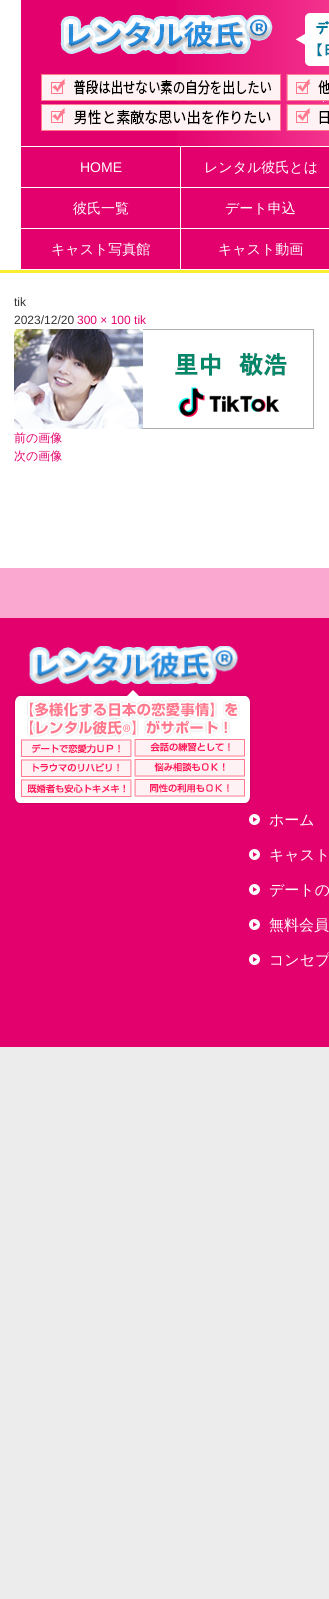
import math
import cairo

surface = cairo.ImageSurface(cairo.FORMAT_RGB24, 329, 1599)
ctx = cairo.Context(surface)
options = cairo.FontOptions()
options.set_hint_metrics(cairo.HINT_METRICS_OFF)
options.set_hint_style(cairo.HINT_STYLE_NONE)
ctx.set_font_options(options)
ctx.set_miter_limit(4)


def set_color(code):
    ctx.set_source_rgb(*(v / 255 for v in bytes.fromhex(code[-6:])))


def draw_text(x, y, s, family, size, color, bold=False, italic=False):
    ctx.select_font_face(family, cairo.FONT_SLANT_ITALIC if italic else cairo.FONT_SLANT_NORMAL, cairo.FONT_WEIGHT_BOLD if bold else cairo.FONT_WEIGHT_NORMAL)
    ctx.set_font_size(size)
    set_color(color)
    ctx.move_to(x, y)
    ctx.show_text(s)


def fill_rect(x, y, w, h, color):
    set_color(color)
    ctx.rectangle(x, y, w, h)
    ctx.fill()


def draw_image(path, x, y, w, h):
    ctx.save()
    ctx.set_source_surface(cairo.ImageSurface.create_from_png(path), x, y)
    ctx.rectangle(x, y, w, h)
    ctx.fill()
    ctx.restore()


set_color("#ececec")
ctx.paint()
fill_rect(0, 0, 20, 270, "#ffffff")
fill_rect(0, 270, 329, 3, "#fbed2f")
fill_rect(21, 0, 156, 146, "#e3026d")
draw_image("assets/img1.png", 177, 0, 152, 146)
fill_rect(20, 0, 1, 146, "#ffffff")
draw_image("assets/img2.png", 60, 15, 213, 39)
draw_image("assets/img3.png", 295, 13, 34, 53)
draw_image("assets/img4.png", 41, 74, 288, 57)
set_color("#e3026d")
ctx.rectangle(20.5, 146.5, 160, 41)
ctx.fill_preserve()
set_color("#ffffff")
ctx.set_line_width(1)
ctx.stroke()
draw_text(80, 172, "HOME", "Liberation Sans", 14, "#ffffff")
set_color("#e3026d")
ctx.rectangle(180.5, 146.5, 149, 41)
ctx.fill_preserve()
set_color("#ffffff")
ctx.stroke()
draw_text(204, 172, "レンタル彼氏とは", "WenQuanYi Zen Hei Medium", 14, "#ffffff")
set_color("#e3026d")
ctx.rectangle(20.5, 187.5, 160, 41)
ctx.fill_preserve()
set_color("#ffffff")
ctx.stroke()
draw_text(73, 213, "彼氏一覧", "WenQuanYi Zen Hei Medium", 14, "#ffffff")
set_color("#e3026d")
ctx.rectangle(180.5, 187.5, 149, 41)
ctx.fill_preserve()
set_color("#ffffff")
ctx.stroke()
draw_text(225, 213, "デート申込", "WenQuanYi Zen Hei Medium", 14, "#ffffff")
set_color("#e3026d")
ctx.rectangle(20.5, 228.5, 160, 41)
ctx.fill_preserve()
set_color("#ffffff")
ctx.stroke()
draw_text(51, 254, "キャスト写真館", "WenQuanYi Zen Hei Medium", 14, "#ffffff")
set_color("#e3026d")
ctx.rectangle(180.5, 228.5, 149, 41)
ctx.fill_preserve()
set_color("#ffffff")
ctx.stroke()
draw_text(218, 254, "キャスト動画", "WenQuanYi Zen Hei Medium", 14, "#ffffff")
fill_rect(0, 273, 329, 295, "#ffffff")
draw_text(14, 306, "tik", "Liberation Sans", 12, "#333333")
draw_text(14, 324, "2023/12/20", "Liberation Sans", 12, "#333333")
draw_text(77, 324, "300 × 100 tik", "Liberation Sans", 12, "#e3026d")
draw_image("assets/img5.png", 14, 329, 300, 100)
draw_text(14, 442, "前の画像", "WenQuanYi Zen Hei Medium", 12, "#e3026d")
draw_text(14, 460, "次の画像", "WenQuanYi Zen Hei Medium", 12, "#e3026d")
fill_rect(0, 618, 329, 429, "#e3026d")
fill_rect(0, 568, 329, 50, "#faa8cf")
draw_image("assets/img6.png", 28, 646, 211, 38)
draw_image("assets/img7.png", 13, 690, 239, 115)
draw_image("assets/img8.png", 249, 814, 11, 11)
draw_text(269, 825, "ホーム", "WenQuanYi Zen Hei Medium", 15, "#ffffff")
draw_image("assets/img8.png", 249, 849, 11, 11)
draw_text(269, 860, "キャスト", "WenQuanYi Zen Hei Medium", 15, "#ffffff")
draw_image("assets/img8.png", 249, 884, 11, 11)
draw_text(269, 895, "デートの", "WenQuanYi Zen Hei Medium", 15, "#ffffff")
draw_image("assets/img8.png", 249, 919, 11, 11)
draw_text(269, 930, "無料会員", "WenQuanYi Zen Hei Medium", 15, "#ffffff")
draw_image("assets/img8.png", 249, 954, 11, 11)
draw_text(269, 965, "コンセプ", "WenQuanYi Zen Hei Medium", 15, "#ffffff")
surface.write_to_png("output.png")
